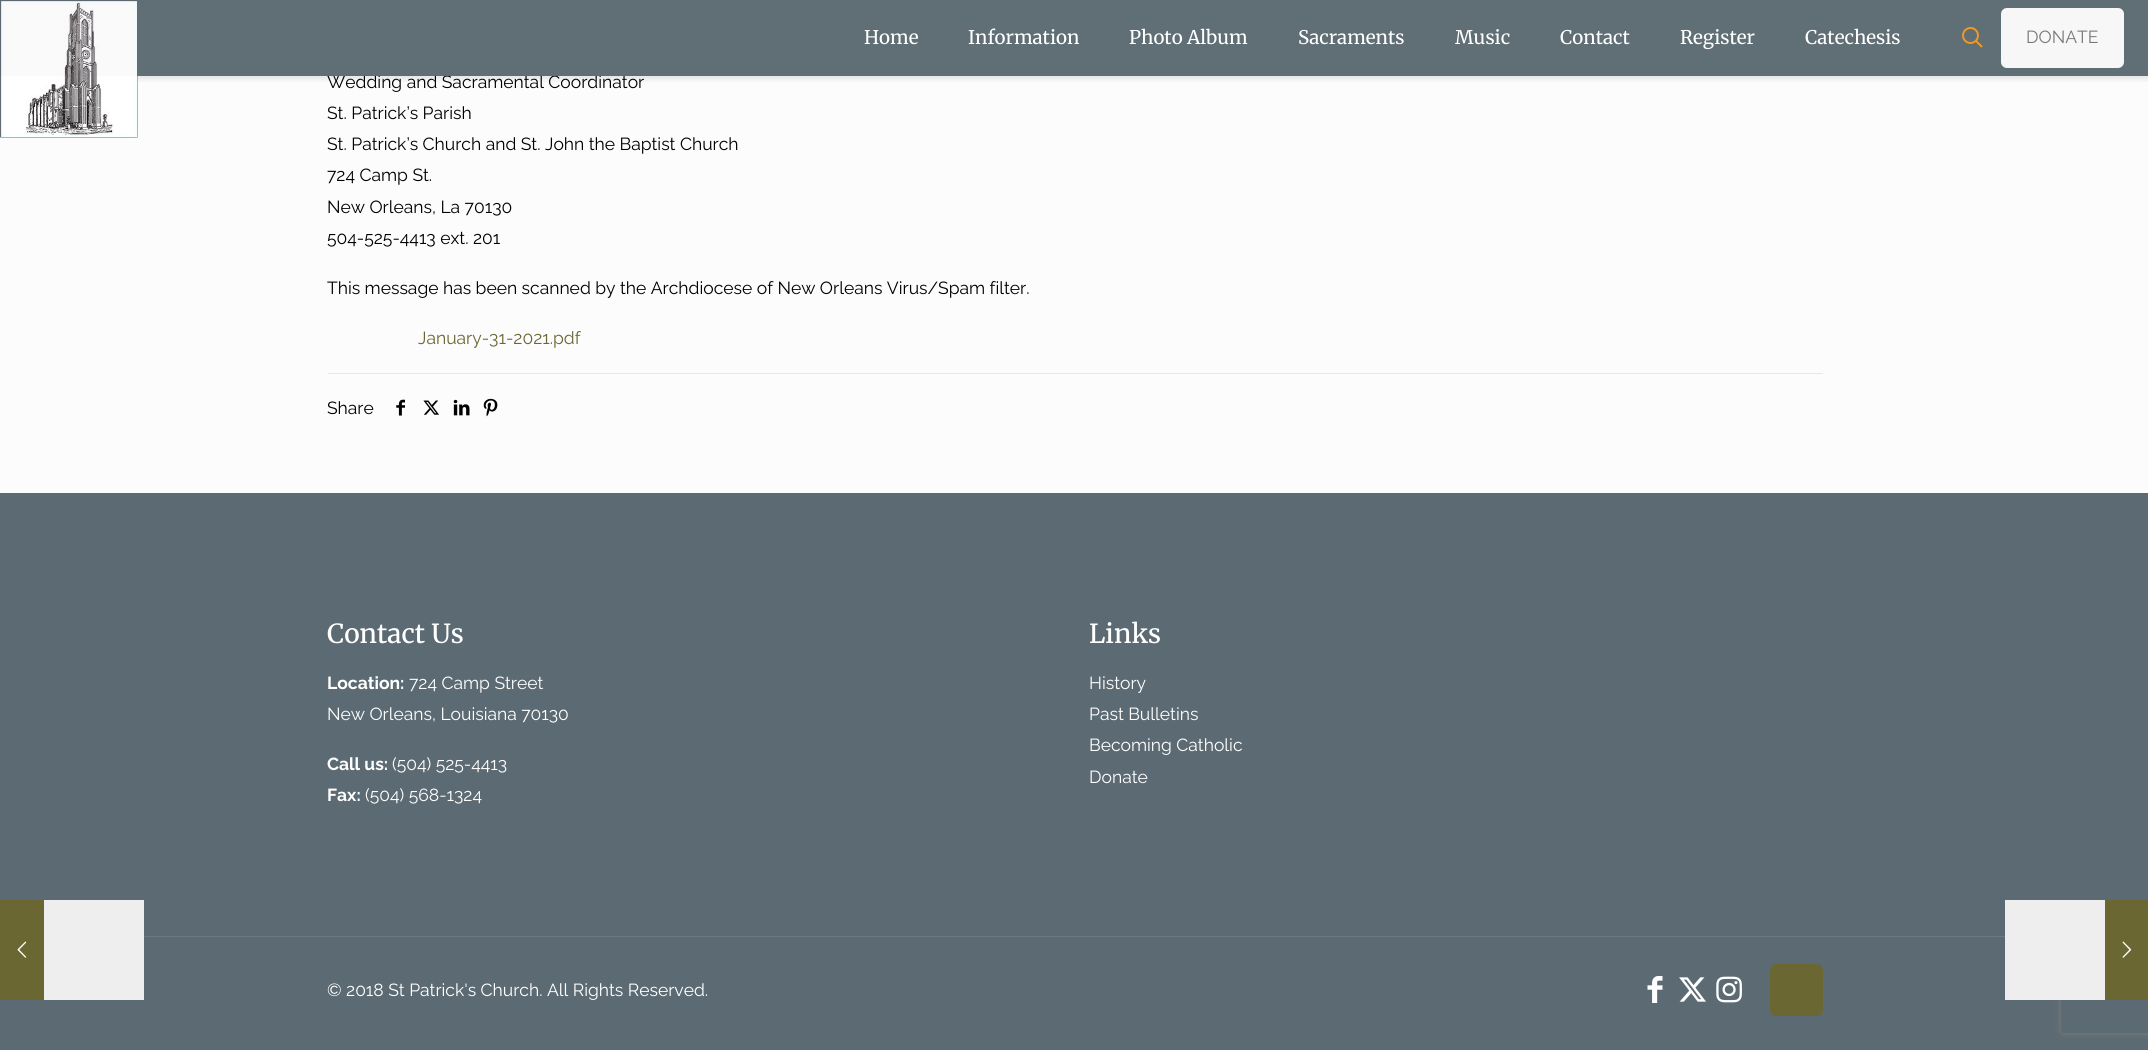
import math
import cairo

surface = cairo.ImageSurface(cairo.FORMAT_RGB24, 2148, 1050)
ctx = cairo.Context(surface)
options = cairo.FontOptions()
options.set_hint_metrics(cairo.HINT_METRICS_OFF)
options.set_hint_style(cairo.HINT_STYLE_NONE)
ctx.set_font_options(options)
ctx.set_miter_limit(4)


def set_color(code):
    ctx.set_source_rgb(*(v / 255 for v in bytes.fromhex(code[-6:])))


def draw_text(x, y, s, family, size, color, bold=False, italic=False):
    ctx.select_font_face(family, cairo.FONT_SLANT_ITALIC if italic else cairo.FONT_SLANT_NORMAL, cairo.FONT_WEIGHT_BOLD if bold else cairo.FONT_WEIGHT_NORMAL)
    ctx.set_font_size(size)
    set_color(color)
    ctx.move_to(x, y)
    ctx.show_text(s)


def fill_rect(x, y, w, h, color):
    set_color(color)
    ctx.rectangle(x, y, w, h)
    ctx.fill()


def rounded_rect(x, y, w, h, r):
    ctx.new_sub_path()
    for i, (u, v) in enumerate([(x + w - r, y + h - r), (x + r, y + h - r), (x + r, y + r), (x + w - r, y + r)]):
        ctx.arc(u, v, r, i * math.pi / 2, (i + 1) * math.pi / 2)
    ctx.close_path()


def draw_shadow(x, y, w, h, r, blur, alpha):
    ctx.push_group_with_content(cairo.CONTENT_ALPHA)
    ctx.set_operator(cairo.OPERATOR_SOURCE)
    for i in range(15, -16, -2):
        e = blur * i / 6
        if min(w, h) + 2 * e > 0:
            ctx.set_source_rgba(0, 0, 0, alpha * math.erfc((i - 1) / 8.5) / 2)
            rounded_rect(x - e, y - e, w + 2 * e, h + 2 * e, max(0, min(r + e + blur * .6, min(w, h) / 2 + e)))
            ctx.fill()
    ctx.mask(ctx.pop_group())


def draw_image(path, x, y, w, h):
    ctx.save()
    ctx.set_source_surface(cairo.ImageSurface.create_from_png(path), x, y)
    ctx.rectangle(x, y, w, h)
    ctx.fill()
    ctx.restore()


set_color("#fcfcfc")
ctx.paint()
fill_rect(0, 493, 2148, 557, "#5c6a73")
fill_rect(0, 900, 44, 100, "#6a6732")
draw_image("assets/img1.png", 17, 941, 10, 17)
fill_rect(44, 900, 100, 100, "#eeeeee")
ctx.save()
ctx.rectangle(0, 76, 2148, 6)
ctx.clip()
set_color("#000000")
draw_shadow(0, 3, 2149, 76, 0, 3, 0.1)
ctx.restore()
draw_text(327, 88, "Wedding and Sacramental Coordinator", "Raleway", 17.5, "#000000")
ctx.set_source_rgba(0.361, 0.416, 0.451, 0.97)
ctx.rectangle(0, 0, 2148, 76)
ctx.fill()
draw_image("assets/img2.png", 0, 0, 138, 138)
draw_text(864, 44, "Home", "Merriweather", 18.75, "#ffffff")
draw_text(968, 44, "Information", "Merriweather", 18.75, "#ffffff")
draw_text(1129, 44, "Photo Album", "Merriweather", 18.75, "#ffffff")
draw_text(1298, 44, "Sacraments", "Merriweather", 18.75, "#ffffff")
draw_text(1455, 44, "Music", "Merriweather", 18.75, "#ffffff")
draw_text(1560, 44, "Contact", "Merriweather", 18.75, "#ffffff")
draw_text(1680, 44, "Register", "Merriweather", 18.75, "#ffffff")
draw_text(1805, 44, "Catechesis", "Merriweather", 18.75, "#ffffff")
ctx.new_path()
ctx.arc(1970.5, 35.5, 7.5, 0, 2 * math.pi)
set_color("#f19b23")
ctx.set_line_width(1.9)
ctx.stroke()
ctx.new_path()
ctx.move_to(1975.5, 40.5)
ctx.line_to(1982, 47)
ctx.stroke()
set_color("#f7f7f7")
rounded_rect(2001, 8, 123, 60, 6)
ctx.fill()
draw_text(2026, 43, "DONATE", "Raleway", 17.5, "#787878")
draw_text(327, 119, "St. Patrick’s Parish", "Raleway", 17.5, "#000000")
draw_text(327, 150, "St. Patrick’s Church and St. John the Baptist Church", "Raleway", 17.5, "#000000")
draw_text(327, 181, "724 Camp St.", "Raleway", 17.5, "#000000")
draw_text(327, 213, "New Orleans, La 70130", "Raleway", 17.5, "#000000")
draw_text(327, 244, "504-525-4413 ext. 201", "Raleway", 17.5, "#000000")
draw_text(327, 294, "This message has been scanned by the Archdiocese of New Orleans Virus/Spam filter.", "Raleway", 17.5, "#000000")
draw_text(418, 344, "January-31-2021.pdf", "Raleway", 17.5, "#6a6732")
fill_rect(328, 373, 1495, 1, "#e8e8e8")
draw_text(327, 414, "Share", "Raleway", 17.5, "#000000")
draw_image("assets/img3.png", 396, 399, 9, 17)
draw_image("assets/img4.png", 423, 400, 16, 15)
draw_image("assets/img5.png", 453, 399, 17, 17)
draw_image("assets/img6.png", 483, 398, 15, 19)
draw_text(327, 643, "Contact Us", "Merriweather Medium", 26.25, "#ffffff")
draw_text(327, 689, "Location:", "Raleway", 17.5, "#ffffff", bold=True)
draw_text(409, 689, "724 Camp Street", "Raleway", 17.5, "#ffffff")
draw_text(327, 720, "New Orleans, Louisiana 70130", "Raleway", 17.5, "#ffffff")
draw_text(327, 770, "Call us:", "Raleway", 17.5, "#ffffff", bold=True)
draw_text(392, 770, "(504) 525-4413", "Raleway", 17.5, "#ffffff")
draw_text(327, 801, "Fax:", "Raleway", 17.5, "#ffffff", bold=True)
draw_text(365, 801, "(504) 568-1324", "Raleway", 17.5, "#ffffff")
draw_text(1089, 643, "Links", "Merriweather Medium", 26.25, "#ffffff")
draw_text(1089, 689, "History", "Raleway", 17.5, "#ffffff")
draw_text(1089, 720, "Past Bulletins", "Raleway", 17.5, "#ffffff")
draw_text(1089, 751, "Becoming Catholic", "Raleway", 17.5, "#ffffff")
draw_text(1089, 783, "Donate", "Raleway", 17.5, "#ffffff")
fill_rect(144, 936, 1861, 1, "#6c7981")
draw_text(327, 996, "© 2018 St Patrick's Church. All Rights Reserved.", "Raleway", 17.5, "#ffffff")
draw_image("assets/img7.png", 1647, 976, 16, 27)
draw_image("assets/img8.png", 1679, 977, 27, 25)
draw_image("assets/img9.png", 1716, 976, 26, 27)
set_color("#6a6732")
rounded_rect(1770, 964, 53, 52, 6)
ctx.fill()
ctx.save()
ctx.set_fill_rule(cairo.FILL_RULE_EVEN_ODD)
ctx.new_path()
ctx.move_to(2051, 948)
ctx.line_to(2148, 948)
ctx.line_to(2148, 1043)
ctx.line_to(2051, 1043)
ctx.close_path()
ctx.move_to(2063.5, 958)
ctx.line_to(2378.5, 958)
ctx.curve_to(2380, 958, 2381, 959, 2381, 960.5)
ctx.line_to(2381, 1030.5)
ctx.curve_to(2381, 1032, 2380, 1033, 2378.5, 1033)
ctx.line_to(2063.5, 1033)
ctx.curve_to(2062, 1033, 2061, 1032, 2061, 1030.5)
ctx.line_to(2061, 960.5)
ctx.curve_to(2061, 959, 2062, 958, 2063.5, 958)
ctx.close_path()
ctx.clip()
set_color("#808080")
draw_shadow(2061, 958, 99, 75, 2.5, 3, 1)
ctx.restore()
fill_rect(2005, 900, 100, 100, "#eeeeee")
fill_rect(2105, 900, 43, 100, "#6a6732")
draw_image("assets/img10.png", 2122, 941, 10, 17)
surface.write_to_png("output.png")
